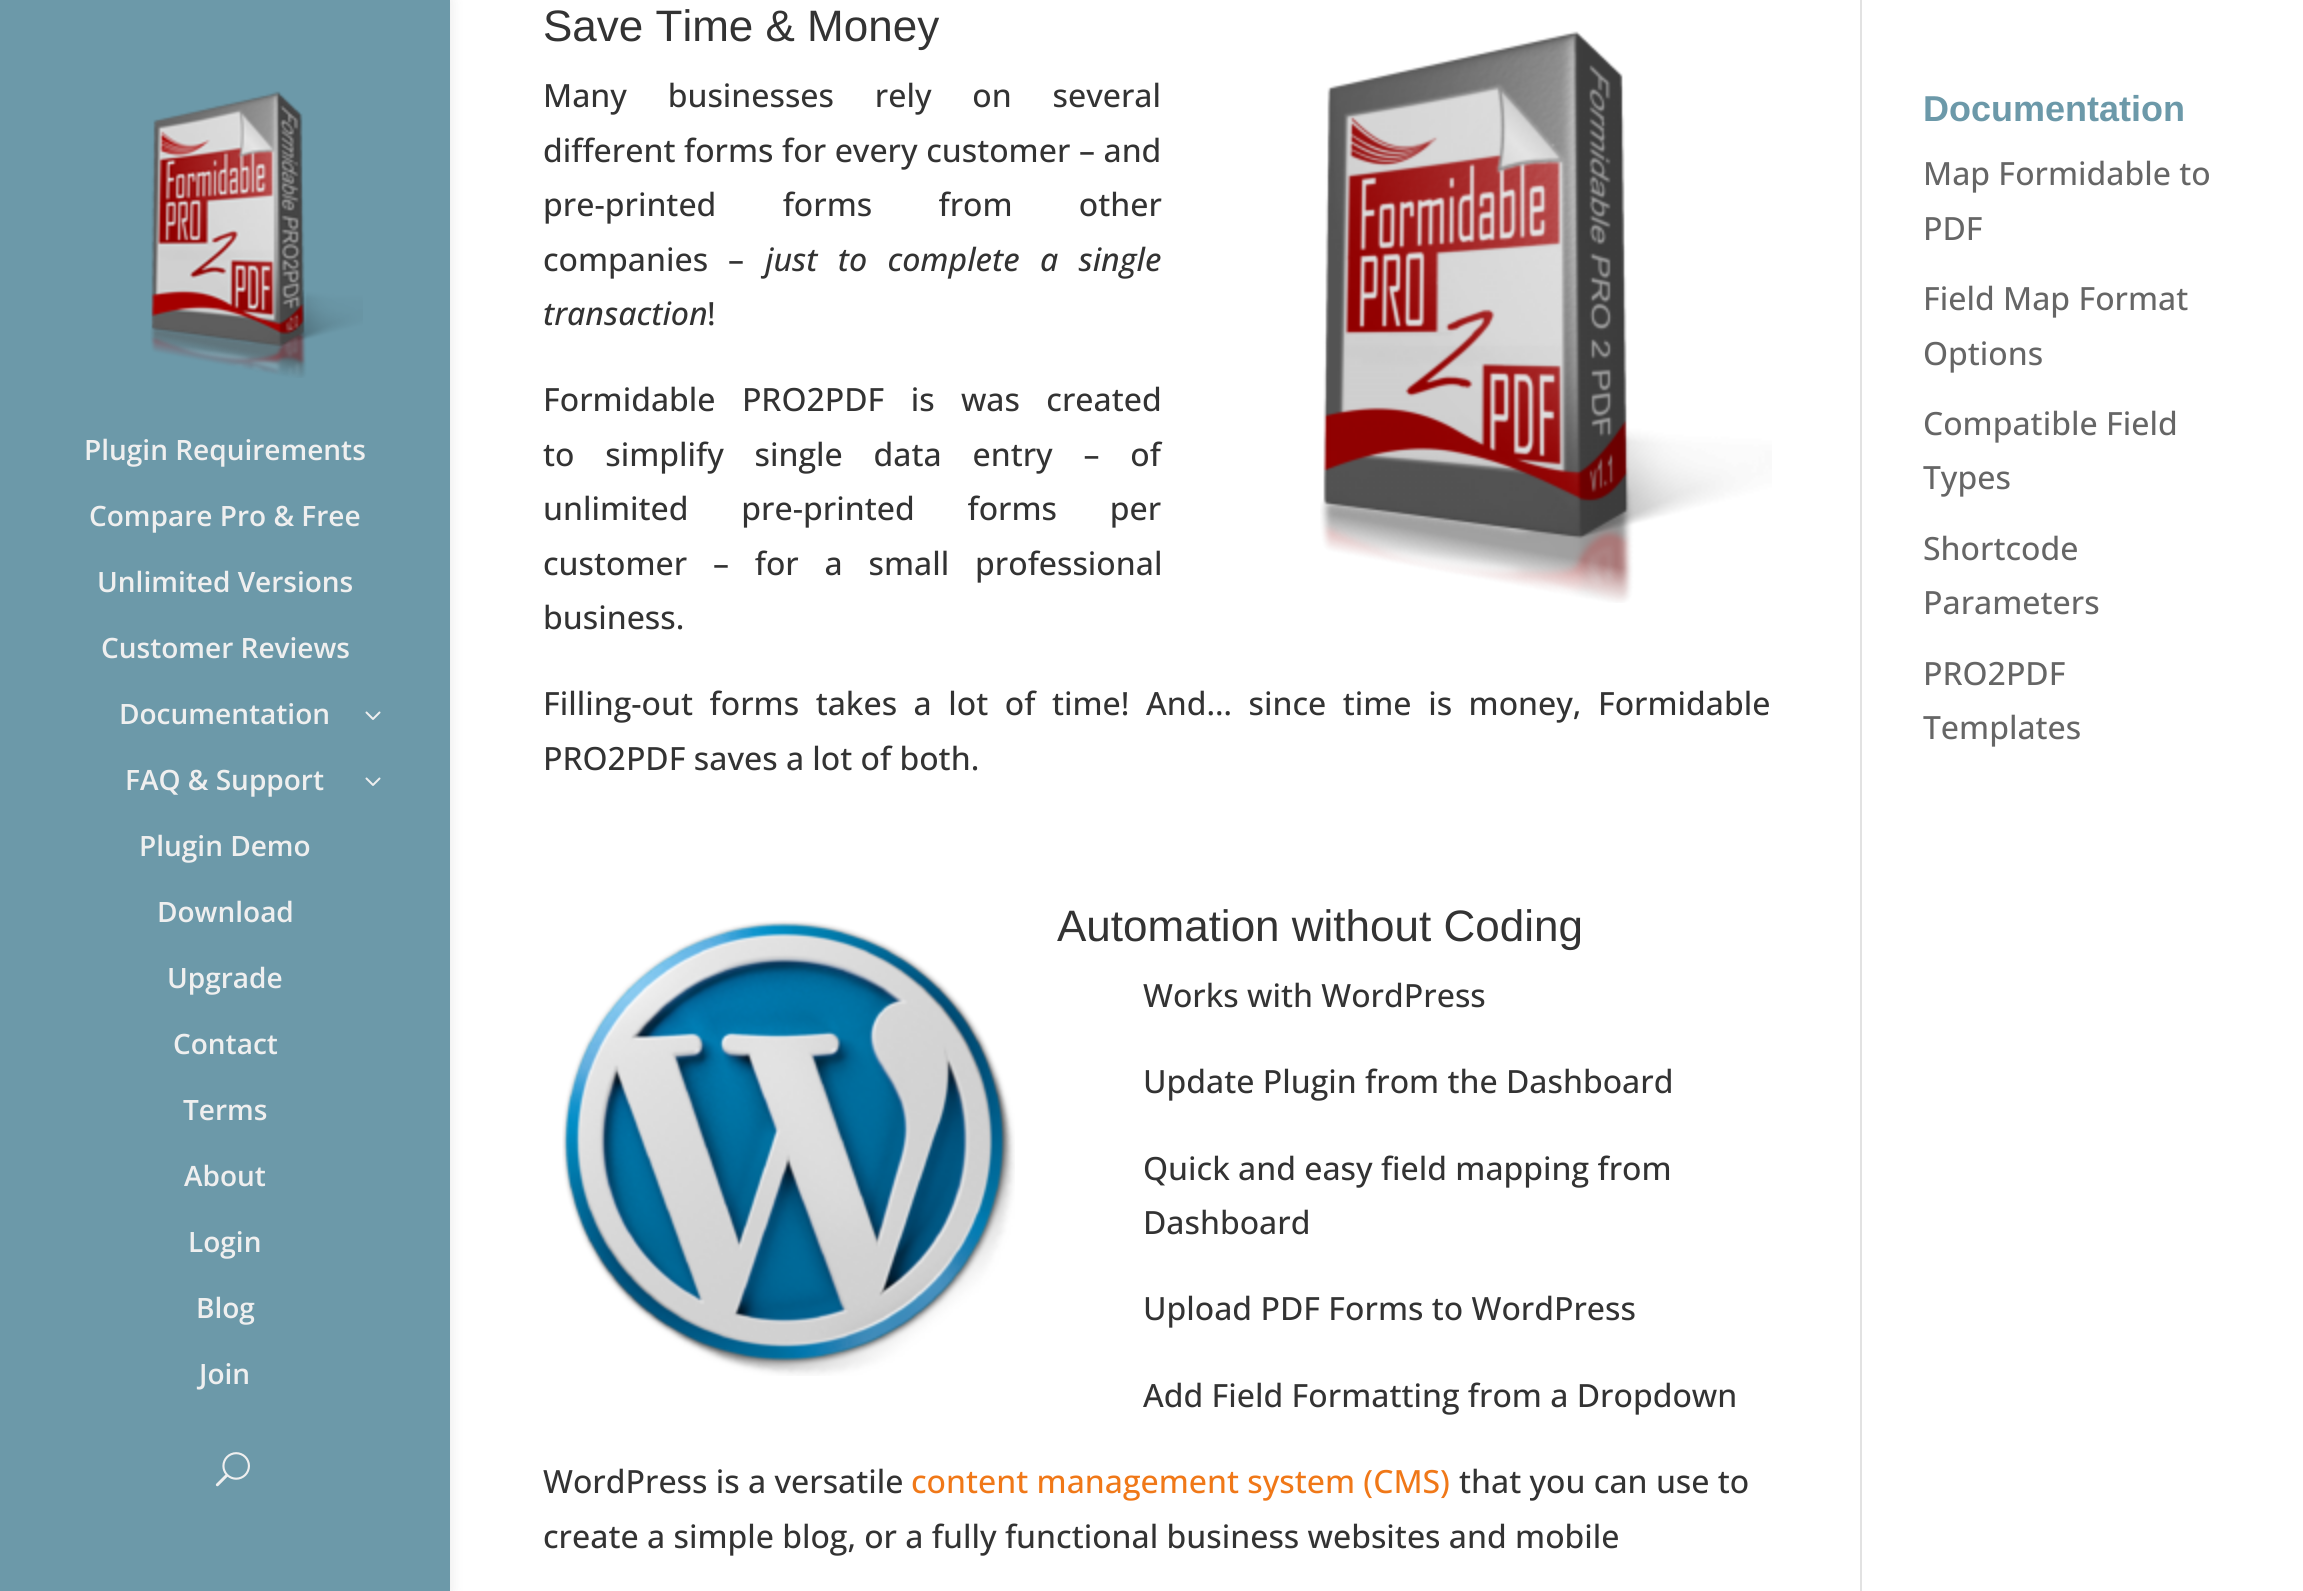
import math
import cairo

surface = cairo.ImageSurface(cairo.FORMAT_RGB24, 2303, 1591)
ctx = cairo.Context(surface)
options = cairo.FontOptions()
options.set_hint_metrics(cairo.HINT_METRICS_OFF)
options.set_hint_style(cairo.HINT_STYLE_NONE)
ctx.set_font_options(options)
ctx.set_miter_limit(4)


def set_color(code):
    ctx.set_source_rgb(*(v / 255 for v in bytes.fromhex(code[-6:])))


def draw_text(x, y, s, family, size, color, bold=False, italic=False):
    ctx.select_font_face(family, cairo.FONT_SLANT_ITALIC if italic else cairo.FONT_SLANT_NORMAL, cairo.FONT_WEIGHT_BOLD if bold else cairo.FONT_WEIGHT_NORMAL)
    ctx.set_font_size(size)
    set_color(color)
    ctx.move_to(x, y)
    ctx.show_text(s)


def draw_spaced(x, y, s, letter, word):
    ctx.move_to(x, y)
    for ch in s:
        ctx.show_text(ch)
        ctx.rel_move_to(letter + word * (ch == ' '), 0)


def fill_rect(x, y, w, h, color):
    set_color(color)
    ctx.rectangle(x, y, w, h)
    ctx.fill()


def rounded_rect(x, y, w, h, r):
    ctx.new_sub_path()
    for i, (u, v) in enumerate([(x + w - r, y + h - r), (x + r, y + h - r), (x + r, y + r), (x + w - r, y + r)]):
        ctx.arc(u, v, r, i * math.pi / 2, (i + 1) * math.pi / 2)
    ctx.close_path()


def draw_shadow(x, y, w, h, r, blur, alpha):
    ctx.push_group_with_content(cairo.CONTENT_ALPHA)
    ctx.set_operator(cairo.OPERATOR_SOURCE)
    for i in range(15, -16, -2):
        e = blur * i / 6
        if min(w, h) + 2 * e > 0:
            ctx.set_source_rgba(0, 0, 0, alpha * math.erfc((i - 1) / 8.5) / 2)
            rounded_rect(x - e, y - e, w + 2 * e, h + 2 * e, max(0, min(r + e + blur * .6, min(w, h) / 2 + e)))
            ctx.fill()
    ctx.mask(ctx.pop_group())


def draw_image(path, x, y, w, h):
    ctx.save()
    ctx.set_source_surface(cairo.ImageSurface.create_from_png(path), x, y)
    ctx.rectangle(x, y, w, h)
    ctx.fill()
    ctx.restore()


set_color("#ffffff")
ctx.paint()
set_color("#000000")
draw_shadow(0, 0, 450, 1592, 0, 7, 0.1)
fill_rect(0, 0, 450, 1591, "#6c99a9")
draw_image("assets/img1.png", 150, 91, 213, 287)
draw_text(84, 460, "Plugin Requirements", "Open Sans SemiBold", 28, "#efefef")
draw_text(89, 526, "Compare Pro & Free", "Open Sans SemiBold", 28, "#efefef")
draw_text(97, 592, "Unlimited Versions", "Open Sans SemiBold", 28, "#efefef")
draw_text(101, 658, "Customer Reviews", "Open Sans SemiBold", 28, "#efefef")
draw_text(119, 724, "Documentation", "Open Sans SemiBold", 28, "#efefef")
draw_image("assets/img2.png", 365, 711, 16, 9)
draw_text(125, 790, "FAQ & Support", "Open Sans SemiBold", 28, "#efefef")
draw_image("assets/img2.png", 365, 777, 16, 9)
draw_text(139, 856, "Plugin Demo", "Open Sans SemiBold", 28, "#efefef")
draw_text(157, 922, "Download", "Open Sans SemiBold", 28, "#efefef")
draw_text(167, 988, "Upgrade", "Open Sans SemiBold", 28, "#efefef")
draw_text(173, 1054, "Contact", "Open Sans SemiBold", 28, "#efefef")
draw_text(183, 1120, "Terms", "Open Sans SemiBold", 28, "#efefef")
draw_text(184, 1186, "About", "Open Sans SemiBold", 28, "#efefef")
draw_text(188, 1252, "Login", "Open Sans SemiBold", 28, "#efefef")
draw_text(196, 1318, "Blog", "Open Sans SemiBold", 28, "#efefef")
draw_text(199, 1384, "Join", "Open Sans SemiBold", 28, "#efefef")
draw_image("assets/img3.png", 215, 1452, 35, 35)
fill_rect(1860, 0, 2, 1591, "#e2e2e2")
draw_text(543, 41, "Save Time & Money", "Liberation Sans", 44, "#333333")
draw_image("assets/img4.png", 1320, 31, 452, 572)
ctx.select_font_face("Open Sans Medium")
ctx.set_font_size(32)
draw_spaced(543, 107, "Many businesses rely on several", 0, 32.5)
draw_spaced(543, 162, "different forms for every customer – and", 0, 0.25)
draw_spaced(543, 216, "pre-printed forms from other", 0, 58)
draw_text(543, 271, "companies", "Open Sans Medium", 32, "#333333")
draw_text(728, 271, "–", "Open Sans Medium", 32, "#333333")
ctx.select_font_face("Open Sans Medium", cairo.FONT_SLANT_ITALIC)
draw_spaced(765, 271, "just to complete a single", 0, 12)
draw_text(543, 325, "transaction", "Open Sans Medium", 32, "#333333", italic=True)
draw_text(707, 325, "!", "Open Sans Medium", 32, "#333333")
draw_spaced(543, 411, "Formidable PRO2PDF is was created", 0, 18)
draw_spaced(543, 466, "to simplify single data entry – of", 0, 22.5)
draw_spaced(543, 520, "unlimited pre-printed forms per", 0, 44.5)
draw_spaced(543, 575, "customer – for a small professional", 0, 17.5)
draw_text(543, 629, "business.", "Open Sans Medium", 32, "#333333")
draw_spaced(543, 715, "Filling-out forms takes a lot of time! And… since time is money, Formidable", 0, 8.25)
draw_text(543, 770, "PRO2PDF saves a lot of both.", "Open Sans Medium", 32, "#333333")
draw_image("assets/img5.png", 562, 920, 453, 456)
draw_text(1057, 941, "Automation without Coding", "Liberation Sans", 44, "#333333")
draw_text(1143, 1007, "Works with WordPress", "Open Sans Medium", 32, "#333333")
draw_text(1143, 1093, "Update Plugin from the Dashboard", "Open Sans Medium", 32, "#333333")
draw_text(1143, 1180, "Quick and easy field mapping from", "Open Sans Medium", 32, "#333333")
draw_text(1143, 1234, "Dashboard", "Open Sans Medium", 32, "#333333")
draw_text(1143, 1320, "Upload PDF Forms to WordPress", "Open Sans Medium", 32, "#333333")
draw_text(1143, 1407, "Add Field Formatting from a Dropdown", "Open Sans Medium", 32, "#333333")
draw_text(543, 1493, "WordPress is a versatile", "Open Sans Medium", 32, "#333333")
draw_text(911, 1493, "content management system (CMS)", "Open Sans Medium", 32, "#f07818")
draw_text(1459, 1493, "that you can use to", "Open Sans Medium", 32, "#333333")
draw_text(543, 1548, "create a simple blog, or a fully functional business websites and mobile", "Open Sans Medium", 32, "#333333")
draw_text(1923, 121, "Documentation", "Liberation Sans", 36, "#6c99a9", bold=True)
draw_text(1923, 185, "Map Formidable to", "Open Sans Medium", 32, "#666666")
draw_text(1923, 240, "PDF", "Open Sans Medium", 32, "#666666")
draw_text(1923, 310, "Field Map Format", "Open Sans Medium", 32, "#666666")
draw_text(1923, 365, "Options", "Open Sans Medium", 32, "#666666")
draw_text(1923, 435, "Compatible Field", "Open Sans Medium", 32, "#666666")
draw_text(1923, 489, "Types", "Open Sans Medium", 32, "#666666")
draw_text(1923, 560, "Shortcode", "Open Sans Medium", 32, "#666666")
draw_text(1923, 614, "Parameters", "Open Sans Medium", 32, "#666666")
draw_text(1923, 685, "PRO2PDF", "Open Sans Medium", 32, "#666666")
draw_text(1923, 739, "Templates", "Open Sans Medium", 32, "#666666")
surface.write_to_png("output.png")
